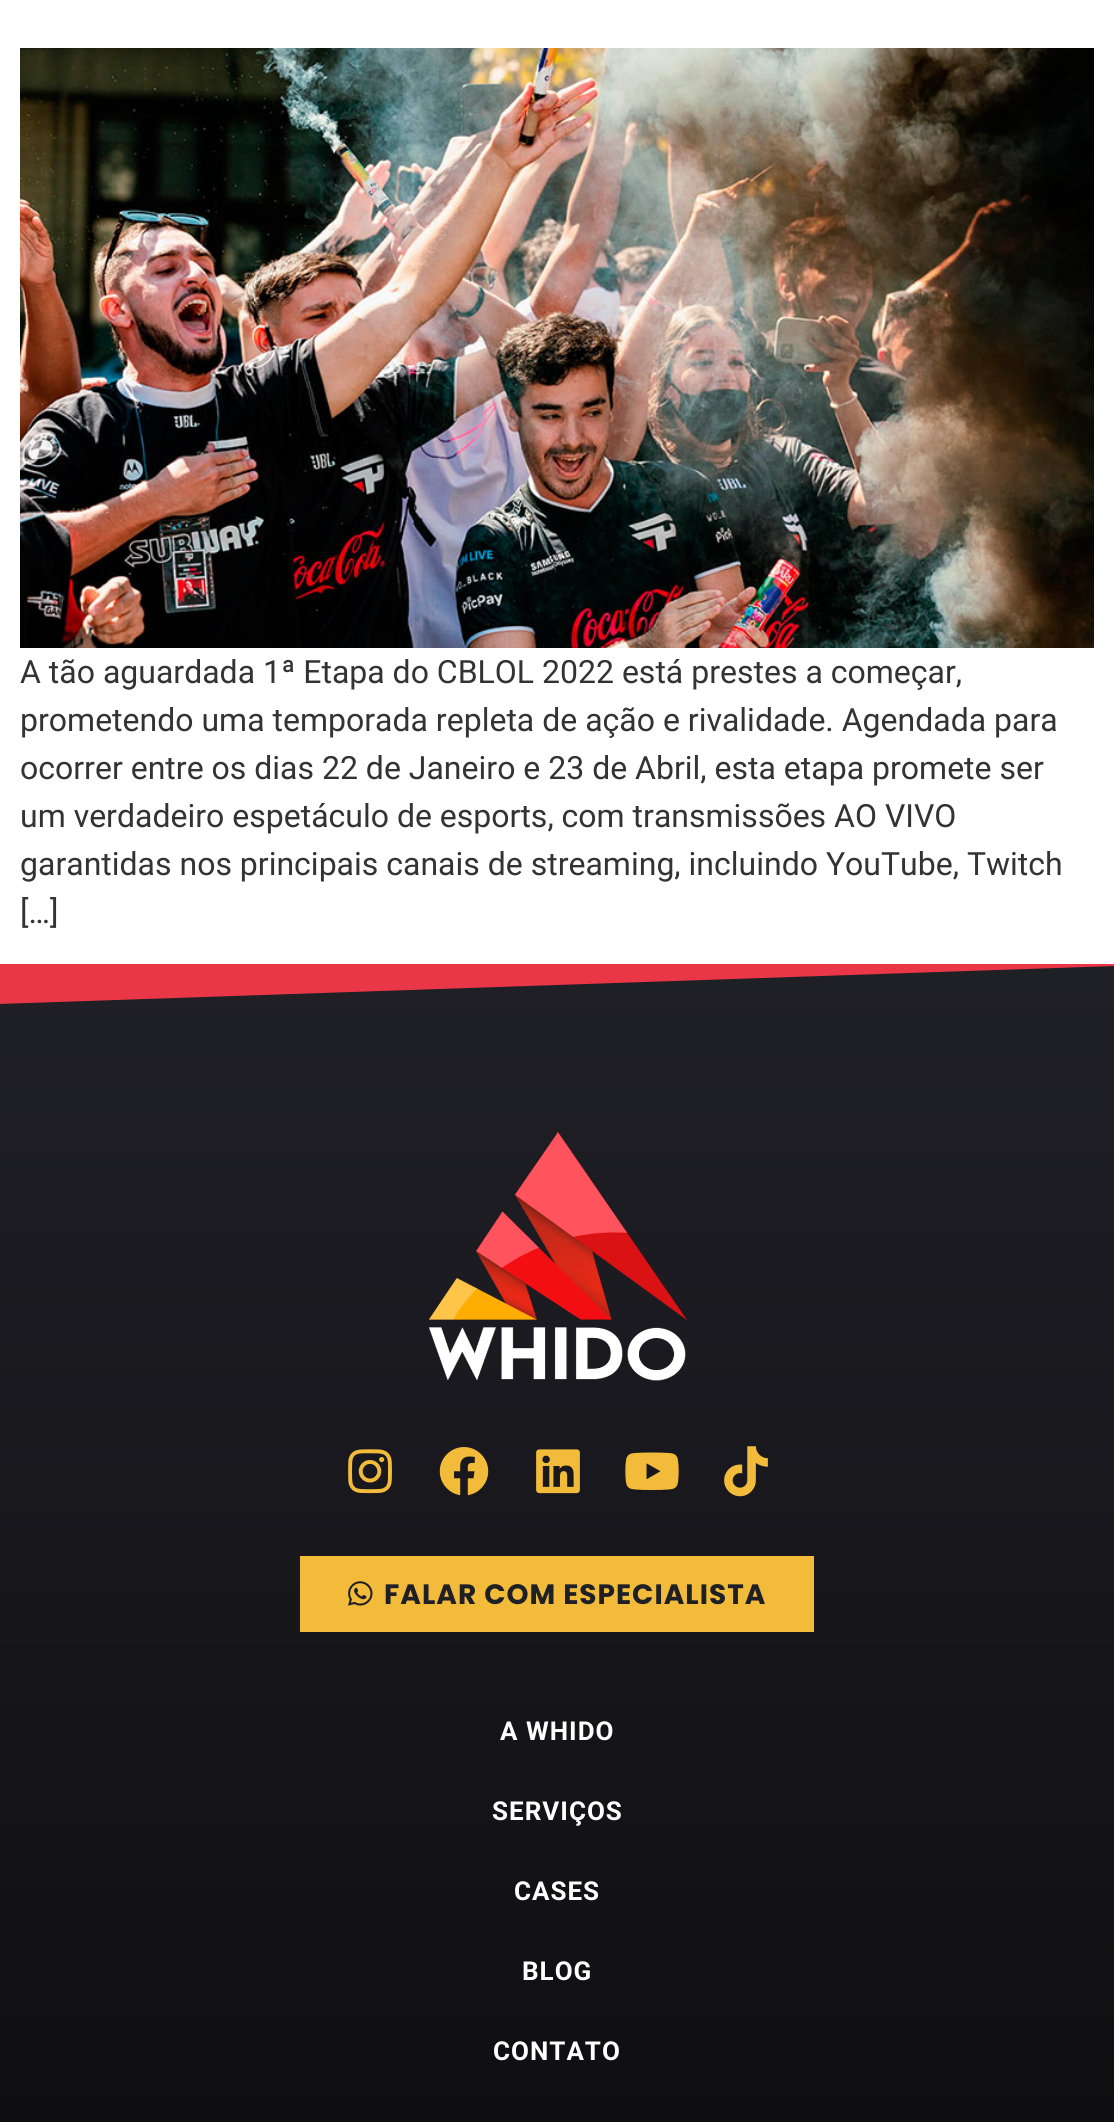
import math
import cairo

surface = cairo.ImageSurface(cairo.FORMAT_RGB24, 1114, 2122)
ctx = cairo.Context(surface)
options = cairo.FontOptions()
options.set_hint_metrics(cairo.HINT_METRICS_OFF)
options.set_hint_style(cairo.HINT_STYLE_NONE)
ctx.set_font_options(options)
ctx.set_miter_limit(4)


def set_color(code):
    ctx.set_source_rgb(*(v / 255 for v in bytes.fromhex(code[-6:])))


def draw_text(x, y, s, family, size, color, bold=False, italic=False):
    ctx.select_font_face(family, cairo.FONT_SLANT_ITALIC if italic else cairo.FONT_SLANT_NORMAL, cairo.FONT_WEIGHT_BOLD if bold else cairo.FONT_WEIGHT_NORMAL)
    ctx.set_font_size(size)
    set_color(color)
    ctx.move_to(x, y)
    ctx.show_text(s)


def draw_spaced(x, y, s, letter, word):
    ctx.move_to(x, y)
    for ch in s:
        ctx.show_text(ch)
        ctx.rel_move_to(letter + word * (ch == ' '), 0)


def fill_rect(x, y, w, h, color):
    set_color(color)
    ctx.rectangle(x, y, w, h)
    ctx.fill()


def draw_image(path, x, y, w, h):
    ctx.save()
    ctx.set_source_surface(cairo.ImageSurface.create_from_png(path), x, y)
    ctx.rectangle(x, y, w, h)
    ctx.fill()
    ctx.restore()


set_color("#ffffff")
ctx.paint()
draw_image("assets/img1.png", 20, 48, 1074, 600)
draw_text(20, 683, "A tão aguardada 1ª Etapa do CBLOL 2022 está prestes a começar,", "Roboto", 32, "#333333")
draw_text(20, 731, "prometendo uma temporada repleta de ação e rivalidade. Agendada para", "Roboto", 32, "#333333")
draw_text(20, 779, "ocorrer entre os dias 22 de Janeiro e 23 de Abril, esta etapa promete ser", "Roboto", 32, "#333333")
draw_text(20, 827, "um verdadeiro espetáculo de esports, com transmissões AO VIVO", "Roboto", 32, "#333333")
draw_text(20, 875, "garantidas nos principais canais de streaming, incluindo YouTube, Twitch", "Roboto", 32, "#333333")
draw_text(20, 923, "[…]", "Roboto", 32, "#333333")
gradient = cairo.LinearGradient(557, 966, 557, 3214)
gradient.add_color_stop_rgba(0, 0.122, 0.122, 0.149, 1)
gradient.add_color_stop_rgba(1, 0, 0, 0, 1)
ctx.set_source(gradient)
ctx.rectangle(0, 966, 1114, 1156)
ctx.fill()
set_color("#e93747")
ctx.new_path()
ctx.move_to(1114, 966)
ctx.line_to(1114, 964)
ctx.line_to(-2, 964)
ctx.line_to(-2, 1004)
ctx.close_path()
ctx.fill()
draw_image("assets/img2.png", 429, 1132, 258, 249)
draw_image("assets/img3.png", 348, 1449, 44, 45)
draw_image("assets/img4.png", 439, 1447, 50, 49)
draw_image("assets/img5.png", 536, 1449, 44, 45)
draw_image("assets/img6.png", 625, 1452, 54, 38)
draw_image("assets/img7.png", 724, 1446, 44, 51)
fill_rect(300, 1556, 514, 76, "#f2bc3a")
draw_image("assets/img8.png", 348, 1581, 25, 25)
ctx.select_font_face("Poppins", cairo.FONT_SLANT_NORMAL, cairo.FONT_WEIGHT_BOLD)
ctx.set_font_size(28)
set_color("#1f1f26")
draw_spaced(384, 1604, "FALAR COM ESPECIALISTA", 1, 0)
ctx.select_font_face("Roboto", cairo.FONT_SLANT_NORMAL, cairo.FONT_WEIGHT_BOLD)
ctx.set_font_size(26)
set_color("#ffffff")
draw_spaced(500, 1740, "A WHIDO", 1, 0)
draw_spaced(492, 1820, "SERVIÇOS", 1, 0)
draw_spaced(514, 1900, "CASES", 1, 0)
draw_spaced(522, 1980, "BLOG", 1, 0)
draw_spaced(493, 2060, "CONTATO", 1, 0)
surface.write_to_png("output.png")
